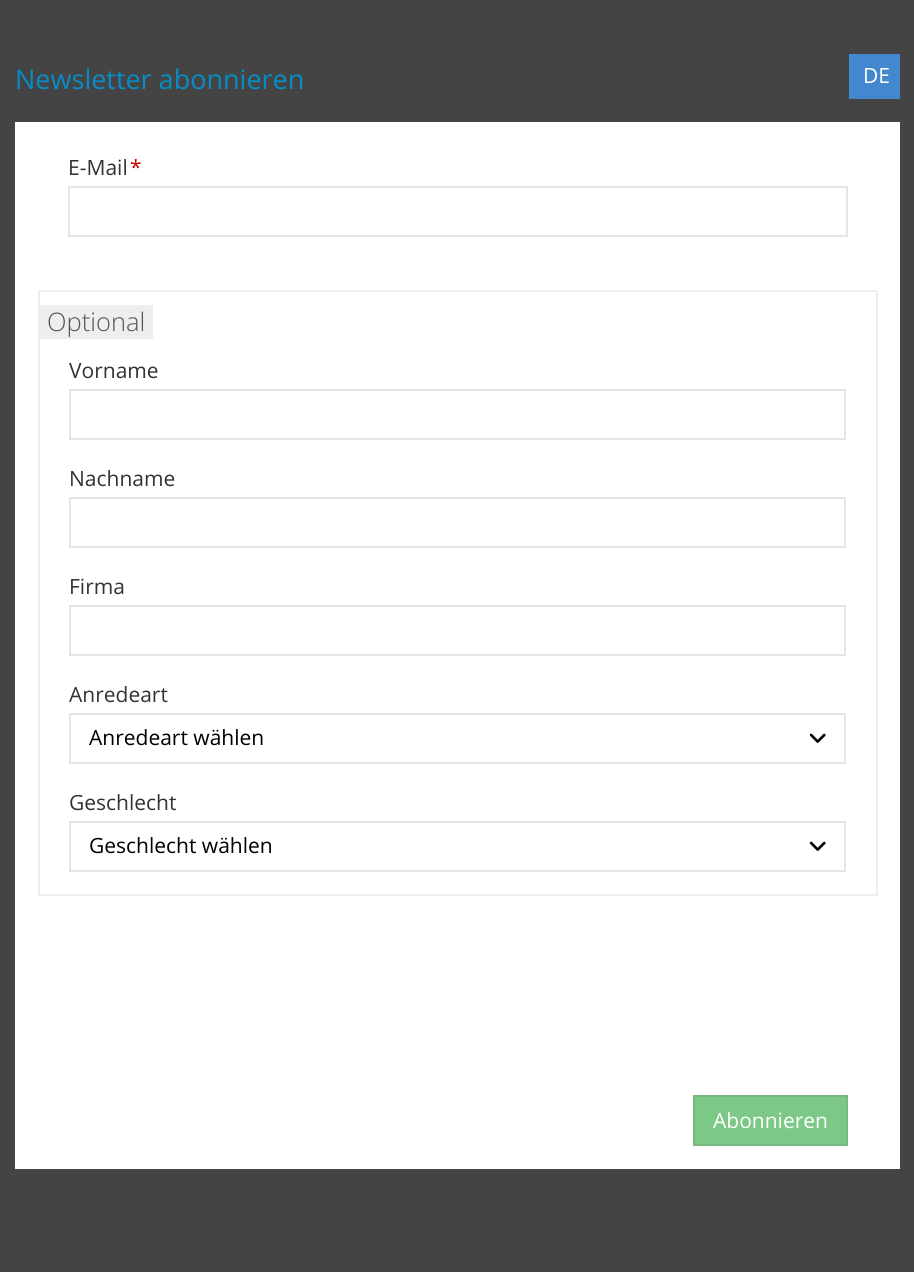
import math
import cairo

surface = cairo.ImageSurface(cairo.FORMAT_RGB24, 914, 1272)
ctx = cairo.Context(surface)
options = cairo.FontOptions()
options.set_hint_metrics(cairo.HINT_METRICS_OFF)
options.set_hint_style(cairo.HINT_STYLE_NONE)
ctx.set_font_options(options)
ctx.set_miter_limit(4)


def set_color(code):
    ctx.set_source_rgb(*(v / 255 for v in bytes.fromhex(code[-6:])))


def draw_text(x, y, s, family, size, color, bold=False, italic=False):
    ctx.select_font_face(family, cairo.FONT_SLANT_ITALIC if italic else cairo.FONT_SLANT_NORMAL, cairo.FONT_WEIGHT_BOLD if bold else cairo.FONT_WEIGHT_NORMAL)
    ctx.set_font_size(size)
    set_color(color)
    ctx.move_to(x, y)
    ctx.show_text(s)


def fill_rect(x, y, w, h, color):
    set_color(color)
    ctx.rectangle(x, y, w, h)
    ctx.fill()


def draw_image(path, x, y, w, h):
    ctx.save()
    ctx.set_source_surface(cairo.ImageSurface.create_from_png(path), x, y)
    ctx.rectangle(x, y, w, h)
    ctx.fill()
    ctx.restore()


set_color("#444444")
ctx.paint()
draw_text(15, 89, "Newsletter abonnieren", "Open Sans", 27, "#068cc7")
fill_rect(849, 54, 51, 45, "#4387cf")
draw_text(863, 83, "DE", "Open Sans", 21, "#ffffff")
fill_rect(15, 122, 885, 1047, "#ffffff")
draw_text(68, 175, "E-Mail", "Open Sans", 21, "#333333")
draw_text(130, 175, "*", "Open Sans", 21, "#c70000")
ctx.rectangle(69, 187, 778, 49)
set_color("#e5e5e5")
ctx.stroke()
ctx.rectangle(39, 291, 838, 604)
set_color("#eeeeee")
ctx.stroke()
fill_rect(40, 305, 113, 34, "#eeeeee")
draw_text(47, 331, "Optional", "Open Sans Light", 25.5, "#555555")
draw_text(69, 378, "Vorname", "Open Sans", 21, "#333333")
ctx.rectangle(70, 390, 775, 49)
set_color("#e5e5e5")
ctx.stroke()
draw_text(69, 486, "Nachname", "Open Sans", 21, "#333333")
ctx.rectangle(70, 498, 775, 49)
set_color("#e5e5e5")
ctx.stroke()
draw_text(69, 594, "Firma", "Open Sans", 21, "#333333")
ctx.rectangle(70, 606, 775, 49)
set_color("#e5e5e5")
ctx.stroke()
draw_text(69, 702, "Anredeart", "Open Sans", 21, "#333333")
ctx.rectangle(70, 714, 775, 49)
set_color("#e5e5e5")
ctx.stroke()
draw_text(89, 745, "Anredeart wählen", "Open Sans", 21, "#000000")
draw_image("assets/img1.png", 809, 733, 17, 10)
draw_text(69, 810, "Geschlecht", "Open Sans", 21, "#333333")
ctx.rectangle(70, 822, 775, 49)
set_color("#e5e5e5")
ctx.stroke()
draw_text(89, 853, "Geschlecht wählen", "Open Sans", 21, "#000000")
draw_image("assets/img1.png", 809, 841, 17, 10)
set_color("#7cc887")
ctx.rectangle(694, 1096, 153, 49)
ctx.fill_preserve()
set_color("#77b981")
ctx.stroke()
draw_text(713, 1128, "Abonnieren", "Open Sans", 21, "#ffffff")
surface.write_to_png("output.png")
